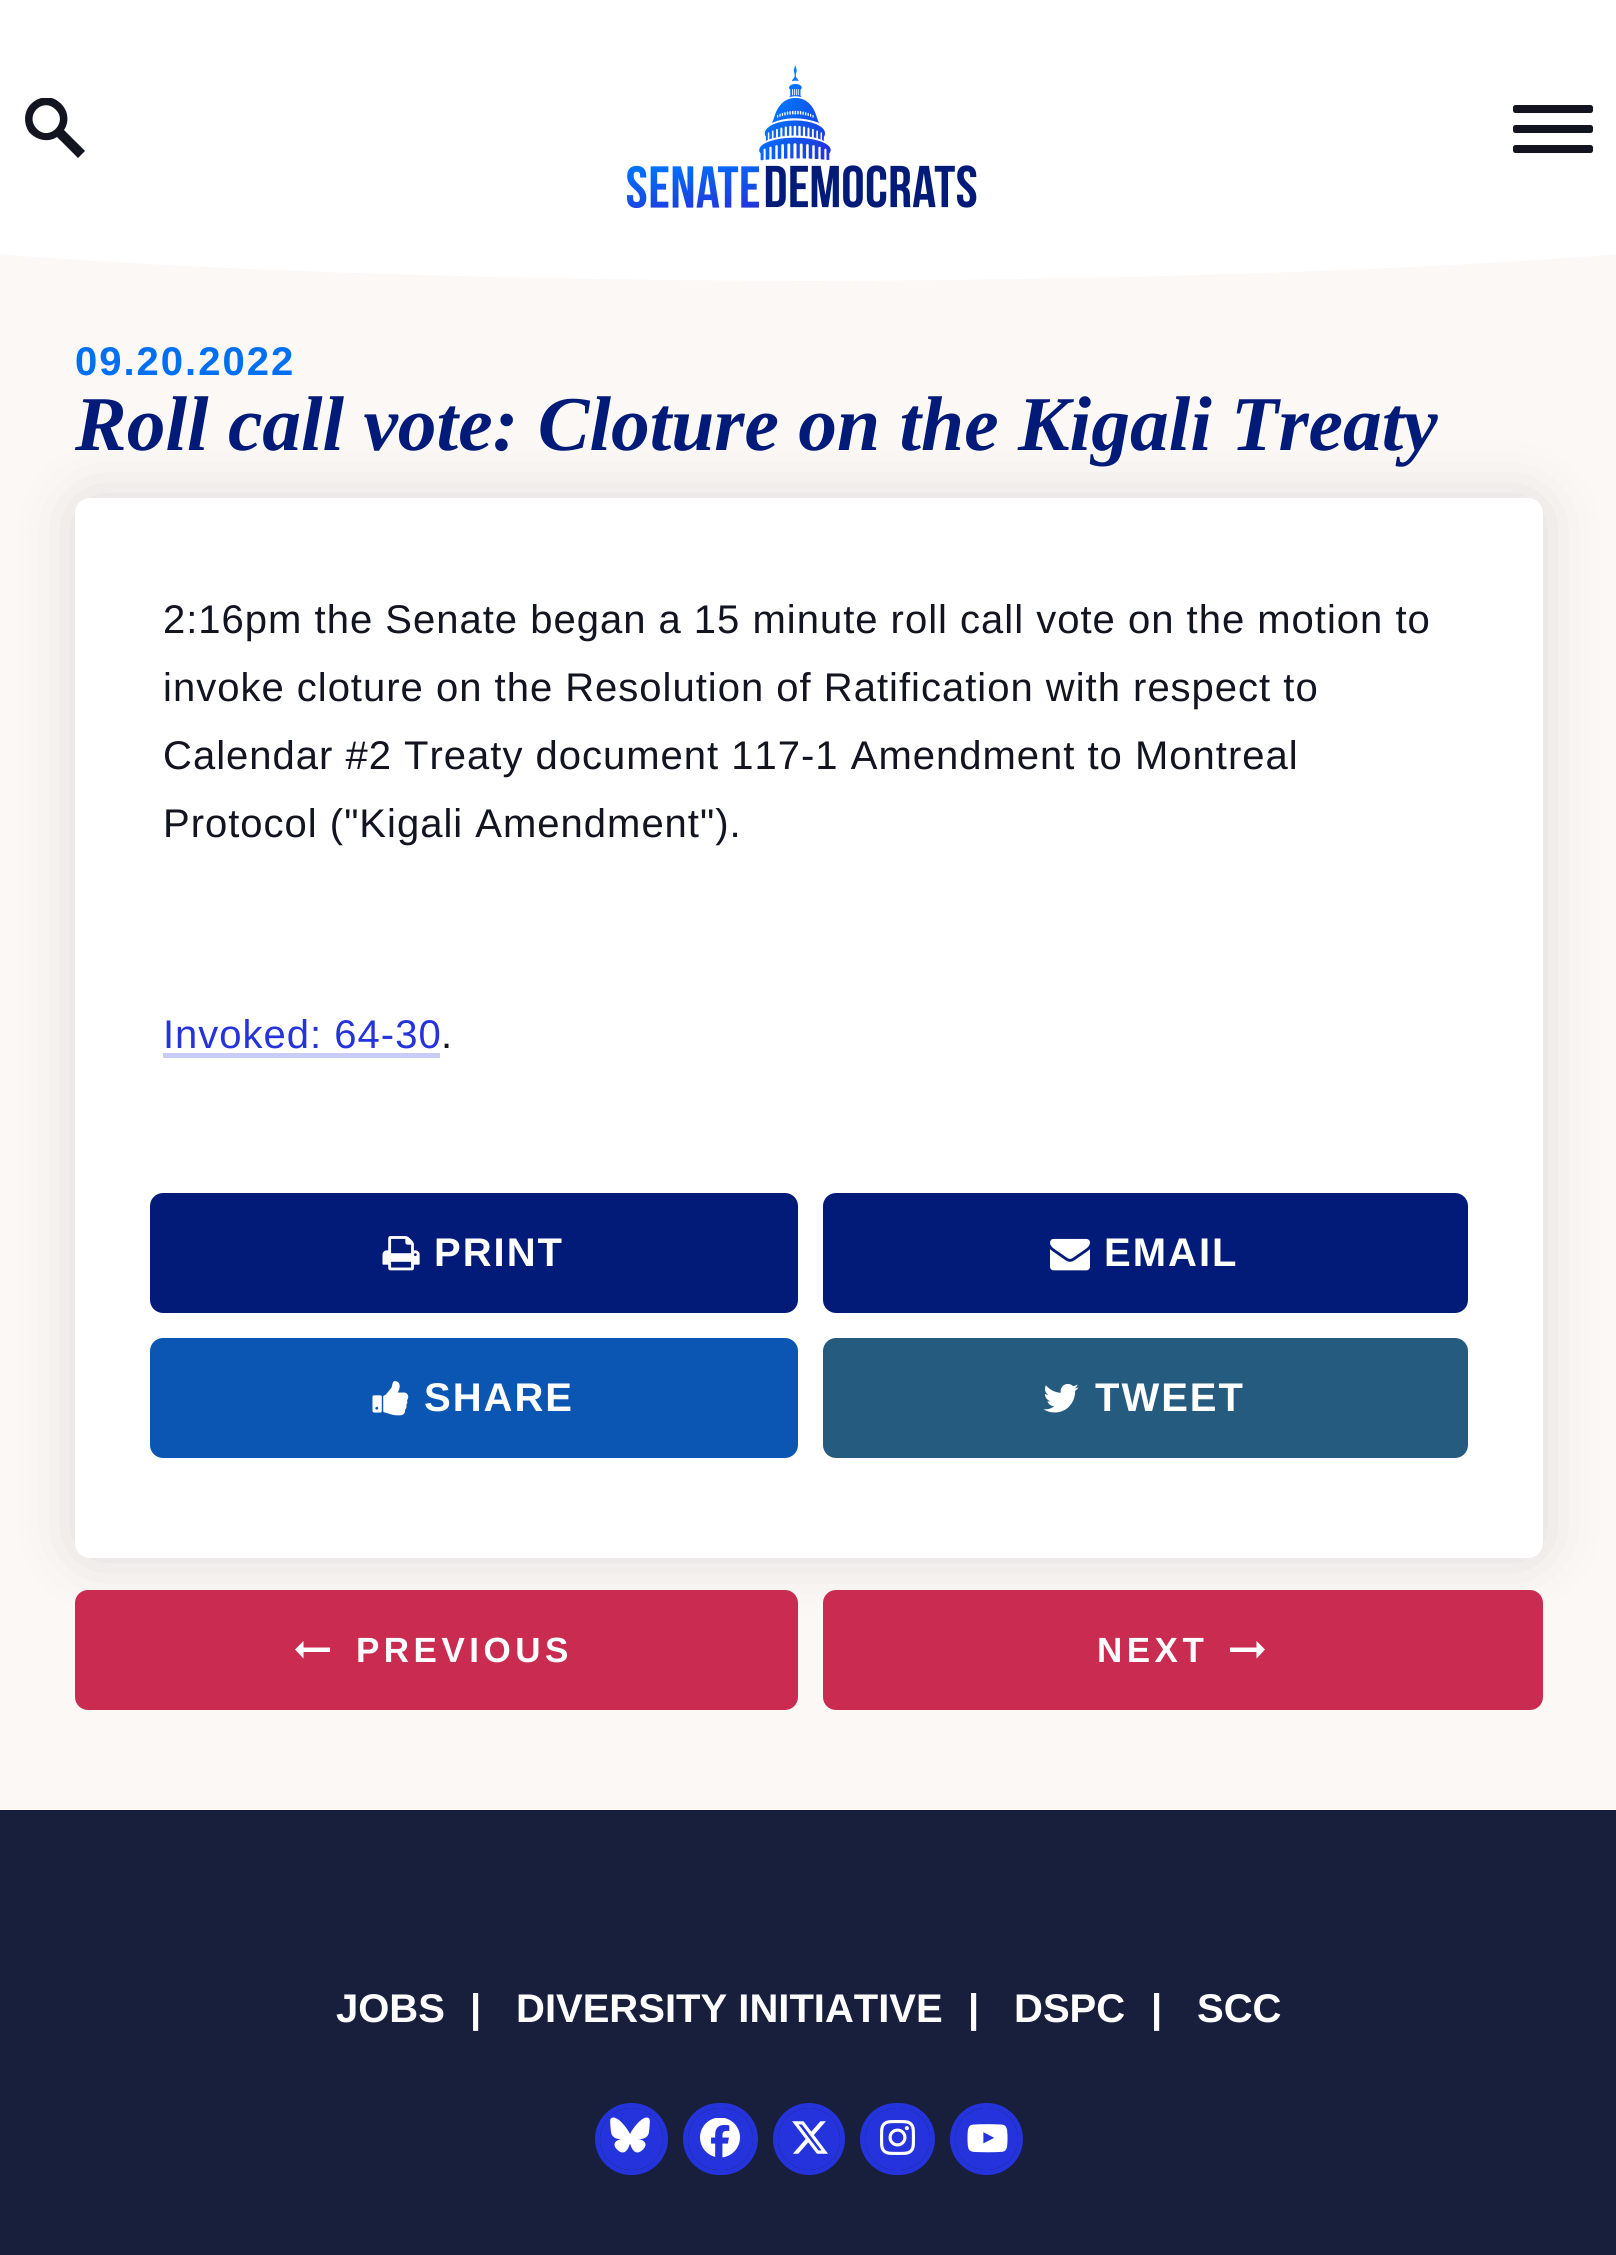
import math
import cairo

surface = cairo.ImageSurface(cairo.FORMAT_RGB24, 1616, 2255)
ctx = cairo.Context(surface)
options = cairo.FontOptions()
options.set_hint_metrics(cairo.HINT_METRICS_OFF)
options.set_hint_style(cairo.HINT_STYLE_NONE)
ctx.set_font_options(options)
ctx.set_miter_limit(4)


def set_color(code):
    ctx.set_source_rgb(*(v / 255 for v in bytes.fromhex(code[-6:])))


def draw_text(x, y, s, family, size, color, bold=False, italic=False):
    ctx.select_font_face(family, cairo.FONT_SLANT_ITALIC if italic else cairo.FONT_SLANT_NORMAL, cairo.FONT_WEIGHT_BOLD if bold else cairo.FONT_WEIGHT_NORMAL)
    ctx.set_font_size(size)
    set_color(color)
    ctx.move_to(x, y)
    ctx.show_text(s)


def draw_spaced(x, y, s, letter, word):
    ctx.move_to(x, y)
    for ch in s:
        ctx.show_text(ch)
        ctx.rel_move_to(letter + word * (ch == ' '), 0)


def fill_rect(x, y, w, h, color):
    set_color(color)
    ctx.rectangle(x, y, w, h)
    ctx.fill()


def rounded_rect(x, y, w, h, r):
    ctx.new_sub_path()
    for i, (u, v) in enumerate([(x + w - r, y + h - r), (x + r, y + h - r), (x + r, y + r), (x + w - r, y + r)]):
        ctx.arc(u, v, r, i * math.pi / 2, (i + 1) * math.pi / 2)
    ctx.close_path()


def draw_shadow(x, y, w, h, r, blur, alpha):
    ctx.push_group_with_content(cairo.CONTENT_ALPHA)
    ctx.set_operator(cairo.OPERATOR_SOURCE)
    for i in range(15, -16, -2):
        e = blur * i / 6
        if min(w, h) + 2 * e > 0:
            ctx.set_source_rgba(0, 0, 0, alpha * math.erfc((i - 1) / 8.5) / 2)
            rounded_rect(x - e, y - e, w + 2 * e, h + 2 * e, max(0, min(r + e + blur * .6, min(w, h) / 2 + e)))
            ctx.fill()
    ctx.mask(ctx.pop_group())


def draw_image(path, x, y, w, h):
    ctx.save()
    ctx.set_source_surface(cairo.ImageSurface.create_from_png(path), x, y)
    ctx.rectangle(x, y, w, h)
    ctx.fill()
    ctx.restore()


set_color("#fbf8f6")
ctx.paint()
fill_rect(0, 0, 1616, 247, "#ffffff")
ctx.save()
ctx.rectangle(25, 98, 60, 60)
ctx.clip()
set_color("#121420")
ctx.new_path()
ctx.move_to(85, 151)
ctx.line_to(64, 130)
ctx.curve_to(70, 121, 68, 109, 59, 102)
ctx.curve_to(51, 95, 39, 96, 31, 104)
ctx.curve_to(24, 111, 23, 123, 29, 132)
ctx.curve_to(36, 140, 48, 143, 57, 137)
ctx.line_to(78, 158)
ctx.close_path()
ctx.move_to(37, 129)
ctx.curve_to(24, 116, 42, 97, 55, 109)
ctx.curve_to(69, 121, 50, 142, 37, 129)
ctx.close_path()
ctx.fill()
ctx.restore()
draw_image("assets/img1.png", 626, 65, 351, 144)
set_color("#121420")
rounded_rect(1513, 105, 80, 8, 2.5)
ctx.fill()
rounded_rect(1513, 125, 80, 8, 2.5)
ctx.fill()
rounded_rect(1513, 145, 80, 8, 2.5)
ctx.fill()
set_color("#ffffff")
ctx.new_path()
ctx.move_to(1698, 247)
ctx.curve_to(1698, 247, 1423, 279, 809, 281)
ctx.curve_to(194, 279, -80, 247, -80, 247)
ctx.fill()
ctx.select_font_face("Arimo", cairo.FONT_SLANT_NORMAL, cairo.FONT_WEIGHT_BOLD)
ctx.set_font_size(40)
set_color("#0070f0")
draw_spaced(75, 375, "09.20.2022", 2, 0)
set_color("#000000")
draw_shadow(75, 498, 1468, 1060, 15, 31, 0.12)
draw_text(75, 450, "Roll call vote: Cloture on the Kigali Treaty", "Tinos", 77.5, "#021b79", bold=True, italic=True)
set_color("#ffffff")
rounded_rect(75, 498, 1468, 1060, 15)
ctx.fill()
ctx.select_font_face("Arimo")
ctx.set_font_size(40)
set_color("#121420")
draw_spaced(163, 633, "2:16pm the Senate began a 15 minute roll call vote on the motion to", 1, 0)
draw_spaced(163, 701, "invoke cloture on the Resolution of Ratification with respect to", 1, 0)
draw_spaced(163, 769, "Calendar #2 Treaty document 117-1 Amendment to Montreal", 1, 0)
draw_spaced(163, 837, "Protocol (\"Kigali Amendment\").", 1, 0)
set_color("#2433db")
draw_spaced(163, 1048, "Invoked: 64-30", 1, 0)
set_color("#121420")
draw_spaced(441, 1048, ".", 1, 0)
fill_rect(163, 1053, 277, 5, "#c8ccf6")
set_color("#021b79")
rounded_rect(150, 1193, 648, 120, 13)
ctx.fill()
draw_image("assets/img2.png", 382, 1236, 38, 35)
ctx.select_font_face("Arimo", cairo.FONT_SLANT_NORMAL, cairo.FONT_WEIGHT_BOLD)
set_color("#ffffff")
draw_spaced(434, 1266, "PRINT", 2, 0)
set_color("#021b79")
rounded_rect(823, 1193, 645, 120, 13)
ctx.fill()
draw_image("assets/img3.png", 1050, 1238, 40, 33)
set_color("#ffffff")
draw_spaced(1104, 1266, "EMAIL", 2, 0)
set_color("#0a56b2")
rounded_rect(150, 1338, 648, 120, 13)
ctx.fill()
draw_image("assets/img4.png", 372, 1381, 37, 35)
set_color("#ffffff")
draw_spaced(424, 1411, "SHARE", 2, 0)
set_color("#245b7f")
rounded_rect(823, 1338, 645, 120, 13)
ctx.fill()
draw_image("assets/img5.png", 1043, 1383, 36, 30)
set_color("#ffffff")
draw_spaced(1095, 1411, "TWEET", 2, 0)
set_color("#ca2b50")
rounded_rect(75, 1590, 723, 120, 13)
ctx.fill()
set_color("#ffffff")
ctx.new_path()
ctx.move_to(303.5, 1647.5)
ctx.line_to(303.5, 1641)
ctx.line_to(295, 1649.5)
ctx.line_to(303.5, 1658.5)
ctx.line_to(303.5, 1652)
ctx.line_to(330, 1652)
ctx.line_to(330, 1647.5)
ctx.close_path()
ctx.fill()
ctx.set_font_size(35)
draw_spaced(356, 1662, "PREVIOUS", 4.5, 0)
set_color("#ca2b50")
rounded_rect(823, 1590, 720, 120, 13)
ctx.fill()
set_color("#ffffff")
draw_spaced(1097, 1662, "NEXT", 4.5, 0)
ctx.new_path()
ctx.move_to(1256.5, 1647.5)
ctx.line_to(1256.5, 1641)
ctx.line_to(1265, 1649.5)
ctx.line_to(1256.5, 1658.5)
ctx.line_to(1256.5, 1652)
ctx.line_to(1230, 1652)
ctx.line_to(1230, 1647.5)
ctx.close_path()
ctx.fill()
fill_rect(0, 1810, 1616, 445, "#171f3d")
draw_text(336, 2022, "JOBS", "Arimo", 40, "#ffffff", bold=True)
draw_text(470, 2022, "|", "Arimo", 40, "#ffffff", bold=True)
draw_text(516, 2022, "DIVERSITY INITIATIVE", "Arimo", 40, "#ffffff", bold=True)
draw_text(968, 2022, "|", "Arimo", 40, "#ffffff", bold=True)
draw_text(1014, 2022, "DSPC", "Arimo", 40, "#ffffff", bold=True)
draw_text(1151, 2022, "|", "Arimo", 40, "#ffffff", bold=True)
draw_text(1197, 2022, "SCC", "Arimo", 40, "#ffffff", bold=True)
rounded_rect(597.5, 2105.5, 68, 67, 33.5)
set_color("#2433db")
ctx.set_line_width(5)
ctx.stroke()
rounded_rect(600, 2108, 63, 62, 31)
ctx.fill()
draw_image("assets/img6.png", 610, 2117, 40, 36)
rounded_rect(685.5, 2105.5, 70, 67, 33.5)
ctx.stroke()
rounded_rect(688, 2108, 65, 62, 31)
ctx.fill()
draw_image("assets/img7.png", 700, 2118, 40, 40)
ctx.arc(809, 2139, 33.5, 0, 2 * math.pi)
ctx.stroke()
ctx.arc(809, 2139, 31, 0, 2 * math.pi)
ctx.fill()
draw_image("assets/img8.png", 792, 2121, 36, 33)
rounded_rect(862.5, 2105.5, 70, 67, 33.5)
ctx.stroke()
rounded_rect(865, 2108, 65, 62, 31)
ctx.fill()
draw_image("assets/img9.png", 880, 2120, 35, 35)
rounded_rect(952.5, 2105.5, 68, 67, 33.5)
ctx.stroke()
rounded_rect(955, 2108, 63, 62, 31)
ctx.fill()
draw_image("assets/img10.png", 967, 2124, 41, 29)
surface.write_to_png("output.png")
